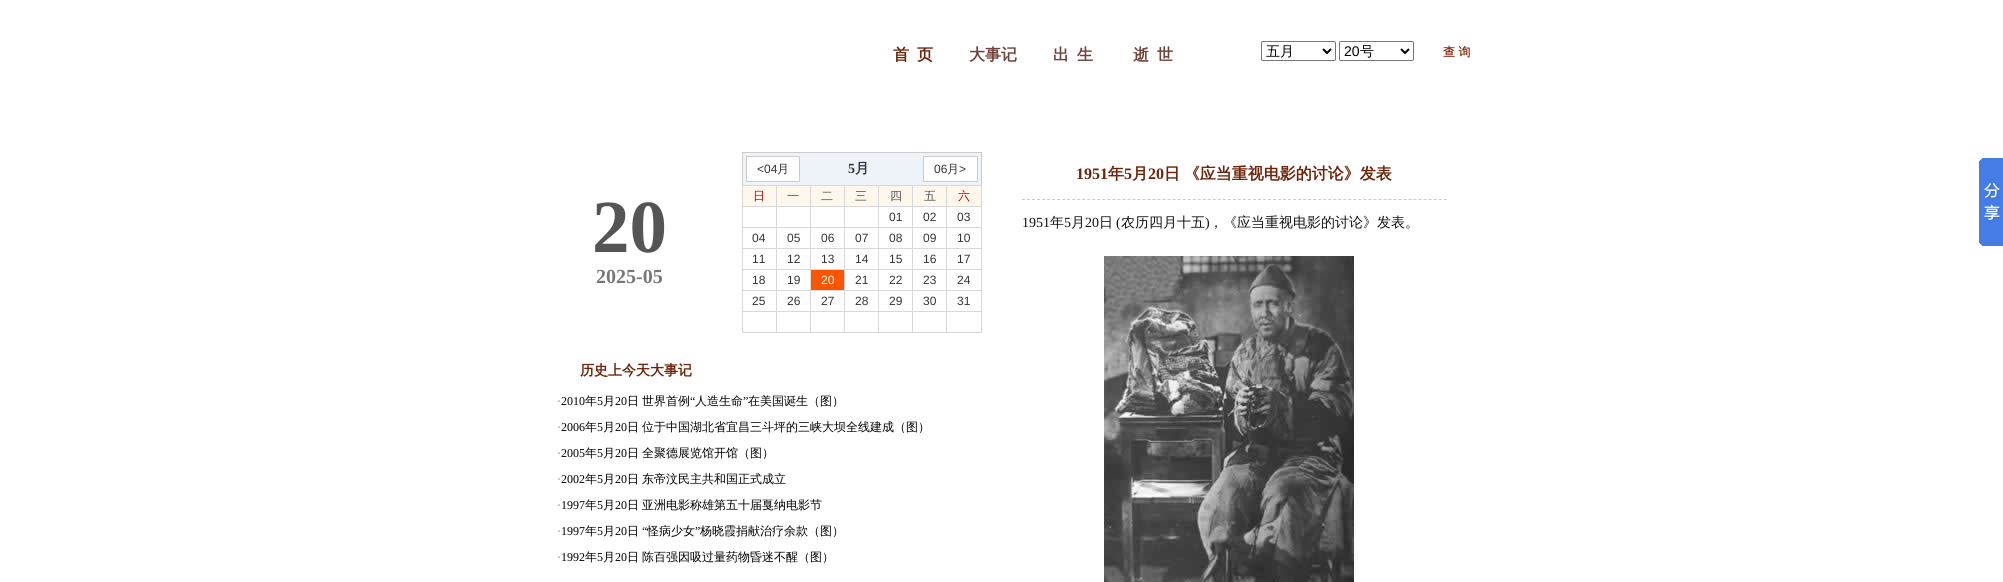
import math
import cairo

surface = cairo.ImageSurface(cairo.FORMAT_RGB24, 2003, 582)
ctx = cairo.Context(surface)
options = cairo.FontOptions()
options.set_hint_metrics(cairo.HINT_METRICS_OFF)
options.set_hint_style(cairo.HINT_STYLE_NONE)
ctx.set_font_options(options)
ctx.set_miter_limit(4)


def set_color(code):
    ctx.set_source_rgb(*(v / 255 for v in bytes.fromhex(code[-6:])))


def draw_text(x, y, s, family, size, color, bold=False, italic=False):
    ctx.select_font_face(family, cairo.FONT_SLANT_ITALIC if italic else cairo.FONT_SLANT_NORMAL, cairo.FONT_WEIGHT_BOLD if bold else cairo.FONT_WEIGHT_NORMAL)
    ctx.set_font_size(size)
    set_color(color)
    ctx.move_to(x, y)
    ctx.show_text(s)


def draw_spaced(x, y, s, letter, word):
    ctx.move_to(x, y)
    for ch in s:
        ctx.show_text(ch)
        ctx.rel_move_to(letter + word * (ch == ' '), 0)


def fill_rect(x, y, w, h, color):
    set_color(color)
    ctx.rectangle(x, y, w, h)
    ctx.fill()


def rounded_rect(x, y, w, h, r):
    ctx.new_sub_path()
    for i, (u, v) in enumerate([(x + w - r, y + h - r), (x + r, y + h - r), (x + r, y + r), (x + w - r, y + r)]):
        ctx.arc(u, v, r, i * math.pi / 2, (i + 1) * math.pi / 2)
    ctx.close_path()


def draw_image(path, x, y, w, h):
    ctx.save()
    ctx.set_source_surface(cairo.ImageSurface.create_from_png(path), x, y)
    ctx.rectangle(x, y, w, h)
    ctx.fill()
    ctx.restore()


set_color("#ffffff")
ctx.paint()
draw_text(893, 60, "首", "WenQuanYi Zen Hei", 16, "#6c230a", bold=True)
draw_text(917, 60, "页", "WenQuanYi Zen Hei", 16, "#6c230a", bold=True)
draw_text(969, 60, "大事记", "WenQuanYi Zen Hei", 16, "#6f4339", bold=True)
draw_text(1053, 60, "出", "WenQuanYi Zen Hei", 16, "#6f4339", bold=True)
draw_text(1077, 60, "生", "WenQuanYi Zen Hei", 16, "#6f4339", bold=True)
draw_text(1133, 60, "逝", "WenQuanYi Zen Hei", 16, "#6f4339", bold=True)
draw_text(1157, 60, "世", "WenQuanYi Zen Hei", 16, "#6f4339", bold=True)
rounded_rect(1261.5, 41.5, 74, 19, 1.5)
set_color("#767676")
ctx.set_line_width(1)
ctx.stroke()
ctx.new_path()
ctx.move_to(1323, 49)
ctx.line_to(1327, 53)
ctx.line_to(1331, 49)
set_color("#000000")
ctx.set_line_width(2)
ctx.stroke()
draw_text(1266, 56, "五月", "WenQuanYi Zen Hei Medium", 14, "#000000")
rounded_rect(1339.5, 41.5, 74, 19, 1.5)
set_color("#767676")
ctx.set_line_width(1)
ctx.stroke()
ctx.new_path()
ctx.move_to(1401, 49)
ctx.line_to(1405, 53)
ctx.line_to(1409, 49)
set_color("#000000")
ctx.set_line_width(2)
ctx.stroke()
draw_text(1344, 56, "20", "Liberation Sans", 14, "#000000")
draw_text(1360, 56, "号", "WenQuanYi Zen Hei Medium", 14, "#000000")
draw_text(1443, 56, "查 询", "WenQuanYi Zen Hei", 12, "#883519", bold=True)
draw_text(592, 252, "20", "Liberation Serif", 75, "#555555", bold=True)
draw_text(596, 283, "2025-05", "Liberation Serif", 20, "#777777", bold=True)
fill_rect(743, 153, 238, 32, "#eef3f9")
fill_rect(742, 152, 240, 1, "#cccccc")
fill_rect(981, 152, 1, 33, "#cccccc")
fill_rect(742, 152, 1, 33, "#cccccc")
set_color("#ffffff")
ctx.rectangle(746.5, 156.5, 53, 25)
ctx.fill_preserve()
set_color("#cccccc")
ctx.set_line_width(1)
ctx.stroke()
draw_text(757, 173, "<04", "Liberation Sans", 12, "#333333")
draw_text(777, 173, "月", "WenQuanYi Zen Hei Medium", 12, "#333333")
draw_text(848, 173, "5", "Liberation Serif", 14, "#333333", bold=True)
draw_text(855, 173, "月", "WenQuanYi Zen Hei", 14, "#333333", bold=True)
set_color("#ffffff")
ctx.rectangle(923.5, 156.5, 54, 25)
ctx.fill_preserve()
set_color("#cccccc")
ctx.stroke()
draw_text(934, 173, "06", "Liberation Sans", 12, "#333333")
draw_text(947, 173, "月", "WenQuanYi Zen Hei Medium", 12, "#333333")
draw_text(959, 173, ">", "Liberation Sans", 12, "#333333")
fill_rect(742, 185, 240, 148, "#d8d8d8")
fill_rect(743, 186, 33, 20, "#fff7ec")
draw_text(753, 200, "日", "WenQuanYi Zen Hei Medium", 12, "#cc0000")
fill_rect(777, 186, 33, 20, "#fff7ec")
draw_text(787, 200, "一", "WenQuanYi Zen Hei Medium", 12, "#555555")
fill_rect(811, 186, 33, 20, "#fff7ec")
draw_text(821, 200, "二", "WenQuanYi Zen Hei Medium", 12, "#555555")
fill_rect(845, 186, 33, 20, "#fff7ec")
draw_text(855, 200, "三", "WenQuanYi Zen Hei Medium", 12, "#555555")
fill_rect(879, 186, 33, 20, "#fff7ec")
draw_text(890, 200, "四", "WenQuanYi Zen Hei Medium", 12, "#555555")
fill_rect(913, 186, 33, 20, "#fff7ec")
draw_text(924, 200, "五", "WenQuanYi Zen Hei Medium", 12, "#555555")
fill_rect(947, 186, 34, 20, "#fff7ec")
draw_text(958, 200, "六", "WenQuanYi Zen Hei Medium", 12, "#cc0000")
fill_rect(743, 207, 33, 20, "#ffffff")
fill_rect(777, 207, 33, 20, "#ffffff")
fill_rect(811, 207, 33, 20, "#ffffff")
fill_rect(845, 207, 33, 20, "#ffffff")
fill_rect(879, 207, 33, 20, "#ffffff")
draw_text(889, 221, "01", "Liberation Sans", 12, "#333333")
fill_rect(913, 207, 33, 20, "#ffffff")
draw_text(923, 221, "02", "Liberation Sans", 12, "#333333")
fill_rect(947, 207, 34, 20, "#ffffff")
draw_text(957, 221, "03", "Liberation Sans", 12, "#333333")
fill_rect(743, 228, 33, 20, "#ffffff")
draw_text(752, 242, "04", "Liberation Sans", 12, "#333333")
fill_rect(777, 228, 33, 20, "#ffffff")
draw_text(787, 242, "05", "Liberation Sans", 12, "#333333")
fill_rect(811, 228, 33, 20, "#ffffff")
draw_text(821, 242, "06", "Liberation Sans", 12, "#333333")
fill_rect(845, 228, 33, 20, "#ffffff")
draw_text(855, 242, "07", "Liberation Sans", 12, "#333333")
fill_rect(879, 228, 33, 20, "#ffffff")
draw_text(889, 242, "08", "Liberation Sans", 12, "#333333")
fill_rect(913, 228, 33, 20, "#ffffff")
draw_text(923, 242, "09", "Liberation Sans", 12, "#333333")
fill_rect(947, 228, 34, 20, "#ffffff")
draw_text(957, 242, "10", "Liberation Sans", 12, "#333333")
fill_rect(743, 249, 33, 20, "#ffffff")
draw_text(752, 263, "11", "Liberation Sans", 12, "#333333")
fill_rect(777, 249, 33, 20, "#ffffff")
draw_text(787, 263, "12", "Liberation Sans", 12, "#333333")
fill_rect(811, 249, 33, 20, "#ffffff")
draw_text(821, 263, "13", "Liberation Sans", 12, "#333333")
fill_rect(845, 249, 33, 20, "#ffffff")
draw_text(855, 263, "14", "Liberation Sans", 12, "#333333")
fill_rect(879, 249, 33, 20, "#ffffff")
draw_text(889, 263, "15", "Liberation Sans", 12, "#333333")
fill_rect(913, 249, 33, 20, "#ffffff")
draw_text(923, 263, "16", "Liberation Sans", 12, "#333333")
fill_rect(947, 249, 34, 20, "#ffffff")
draw_text(957, 263, "17", "Liberation Sans", 12, "#333333")
fill_rect(743, 270, 33, 20, "#ffffff")
draw_text(752, 284, "18", "Liberation Sans", 12, "#333333")
fill_rect(777, 270, 33, 20, "#ffffff")
draw_text(787, 284, "19", "Liberation Sans", 12, "#333333")
fill_rect(811, 270, 33, 20, "#ff5500")
draw_text(821, 284, "20", "Liberation Sans", 12, "#ffffff")
fill_rect(845, 270, 33, 20, "#ffffff")
draw_text(855, 284, "21", "Liberation Sans", 12, "#333333")
fill_rect(879, 270, 33, 20, "#ffffff")
draw_text(889, 284, "22", "Liberation Sans", 12, "#333333")
fill_rect(913, 270, 33, 20, "#ffffff")
draw_text(923, 284, "23", "Liberation Sans", 12, "#333333")
fill_rect(947, 270, 34, 20, "#ffffff")
draw_text(957, 284, "24", "Liberation Sans", 12, "#333333")
fill_rect(743, 291, 33, 20, "#ffffff")
draw_text(752, 305, "25", "Liberation Sans", 12, "#333333")
fill_rect(777, 291, 33, 20, "#ffffff")
draw_text(787, 305, "26", "Liberation Sans", 12, "#333333")
fill_rect(811, 291, 33, 20, "#ffffff")
draw_text(821, 305, "27", "Liberation Sans", 12, "#333333")
fill_rect(845, 291, 33, 20, "#ffffff")
draw_text(855, 305, "28", "Liberation Sans", 12, "#333333")
fill_rect(879, 291, 33, 20, "#ffffff")
draw_text(889, 305, "29", "Liberation Sans", 12, "#333333")
fill_rect(913, 291, 33, 20, "#ffffff")
draw_text(923, 305, "30", "Liberation Sans", 12, "#333333")
fill_rect(947, 291, 34, 20, "#ffffff")
draw_text(957, 305, "31", "Liberation Sans", 12, "#333333")
fill_rect(743, 312, 33, 20, "#ffffff")
fill_rect(777, 312, 33, 20, "#ffffff")
fill_rect(811, 312, 33, 20, "#ffffff")
fill_rect(845, 312, 33, 20, "#ffffff")
fill_rect(879, 312, 33, 20, "#ffffff")
fill_rect(913, 312, 33, 20, "#ffffff")
fill_rect(947, 312, 34, 20, "#ffffff")
draw_text(580, 375, "历史上今天大事记", "WenQuanYi Zen Hei", 14, "#6c230a", bold=True)
draw_text(557, 405, "·", "Liberation Serif", 12, "#666666")
draw_text(561, 405, "2010", "Liberation Serif", 12, "#000000")
draw_text(585, 405, "年", "WenQuanYi Zen Hei Medium", 12, "#000000")
draw_text(597, 405, "5", "Liberation Serif", 12, "#000000")
draw_text(603, 405, "月", "WenQuanYi Zen Hei Medium", 12, "#000000")
draw_text(615, 405, "20", "Liberation Serif", 12, "#000000")
draw_text(627, 405, "日", "WenQuanYi Zen Hei Medium", 12, "#000000")
draw_text(642, 405, "世界首例", "WenQuanYi Zen Hei Medium", 12, "#000000")
draw_text(690, 405, "“", "Liberation Serif", 12, "#000000")
draw_text(695, 405, "人造生命", "WenQuanYi Zen Hei Medium", 12, "#000000")
draw_text(743, 405, "”", "Liberation Serif", 12, "#000000")
draw_text(748, 405, "在美国诞生（图）", "WenQuanYi Zen Hei Medium", 12, "#000000")
draw_text(557, 431, "·", "Liberation Serif", 12, "#666666")
draw_text(561, 431, "2006", "Liberation Serif", 12, "#000000")
draw_text(585, 431, "年", "WenQuanYi Zen Hei Medium", 12, "#000000")
draw_text(597, 431, "5", "Liberation Serif", 12, "#000000")
draw_text(603, 431, "月", "WenQuanYi Zen Hei Medium", 12, "#000000")
draw_text(615, 431, "20", "Liberation Serif", 12, "#000000")
draw_text(627, 431, "日", "WenQuanYi Zen Hei Medium", 12, "#000000")
draw_text(642, 431, "位于中国湖北省宜昌三斗坪的三峡大坝全线建成（图）", "WenQuanYi Zen Hei Medium", 12, "#000000")
draw_text(557, 457, "·", "Liberation Serif", 12, "#666666")
draw_text(561, 457, "2005", "Liberation Serif", 12, "#000000")
draw_text(585, 457, "年", "WenQuanYi Zen Hei Medium", 12, "#000000")
draw_text(597, 457, "5", "Liberation Serif", 12, "#000000")
draw_text(603, 457, "月", "WenQuanYi Zen Hei Medium", 12, "#000000")
draw_text(615, 457, "20", "Liberation Serif", 12, "#000000")
draw_text(627, 457, "日", "WenQuanYi Zen Hei Medium", 12, "#000000")
draw_text(642, 457, "全聚德展览馆开馆（图）", "WenQuanYi Zen Hei Medium", 12, "#000000")
draw_text(557, 483, "·", "Liberation Serif", 12, "#666666")
draw_text(561, 483, "2002", "Liberation Serif", 12, "#000000")
draw_text(585, 483, "年", "WenQuanYi Zen Hei Medium", 12, "#000000")
draw_text(597, 483, "5", "Liberation Serif", 12, "#000000")
draw_text(603, 483, "月", "WenQuanYi Zen Hei Medium", 12, "#000000")
draw_text(615, 483, "20", "Liberation Serif", 12, "#000000")
draw_text(627, 483, "日", "WenQuanYi Zen Hei Medium", 12, "#000000")
draw_text(642, 483, "东帝汶民主共和国正式成立", "WenQuanYi Zen Hei Medium", 12, "#000000")
draw_text(557, 509, "·", "Liberation Serif", 12, "#666666")
draw_text(561, 509, "1997", "Liberation Serif", 12, "#000000")
draw_text(585, 509, "年", "WenQuanYi Zen Hei Medium", 12, "#000000")
draw_text(597, 509, "5", "Liberation Serif", 12, "#000000")
draw_text(603, 509, "月", "WenQuanYi Zen Hei Medium", 12, "#000000")
draw_text(615, 509, "20", "Liberation Serif", 12, "#000000")
draw_text(627, 509, "日", "WenQuanYi Zen Hei Medium", 12, "#000000")
draw_text(642, 509, "亚洲电影称雄第五十届戛纳电影节", "WenQuanYi Zen Hei Medium", 12, "#000000")
draw_text(557, 535, "·", "Liberation Serif", 12, "#666666")
draw_text(561, 535, "1997", "Liberation Serif", 12, "#000000")
draw_text(585, 535, "年", "WenQuanYi Zen Hei Medium", 12, "#000000")
draw_text(597, 535, "5", "Liberation Serif", 12, "#000000")
draw_text(603, 535, "月", "WenQuanYi Zen Hei Medium", 12, "#000000")
draw_text(615, 535, "20", "Liberation Serif", 12, "#000000")
draw_text(627, 535, "日", "WenQuanYi Zen Hei Medium", 12, "#000000")
draw_text(642, 535, "“", "Liberation Serif", 12, "#000000")
draw_text(647, 535, "怪病少女", "WenQuanYi Zen Hei Medium", 12, "#000000")
draw_text(695, 535, "”", "Liberation Serif", 12, "#000000")
draw_text(700, 535, "杨晓霞捐献治疗余款（图）", "WenQuanYi Zen Hei Medium", 12, "#000000")
draw_text(557, 561, "·", "Liberation Serif", 12, "#666666")
draw_text(561, 561, "1992", "Liberation Serif", 12, "#000000")
draw_text(585, 561, "年", "WenQuanYi Zen Hei Medium", 12, "#000000")
draw_text(597, 561, "5", "Liberation Serif", 12, "#000000")
draw_text(603, 561, "月", "WenQuanYi Zen Hei Medium", 12, "#000000")
draw_text(615, 561, "20", "Liberation Serif", 12, "#000000")
draw_text(627, 561, "日", "WenQuanYi Zen Hei Medium", 12, "#000000")
draw_text(642, 561, "陈百强因吸过量药物昏迷不醒（图）", "WenQuanYi Zen Hei Medium", 12, "#000000")
ctx.new_path()
ctx.move_to(1022, 199.5)
ctx.line_to(1447, 199.5)
set_color("#cccccc")
ctx.set_dash([3, 2.02])
ctx.stroke()
draw_text(1076, 179, "1951", "Liberation Serif", 16, "#6c230a", bold=True)
draw_text(1108, 179, "年", "WenQuanYi Zen Hei", 16, "#6c230a", bold=True)
draw_text(1124, 179, "5", "Liberation Serif", 16, "#6c230a", bold=True)
draw_text(1132, 179, "月", "WenQuanYi Zen Hei", 16, "#6c230a", bold=True)
draw_text(1148, 179, "20", "Liberation Serif", 16, "#6c230a", bold=True)
ctx.select_font_face("WenQuanYi Zen Hei", cairo.FONT_SLANT_NORMAL, cairo.FONT_WEIGHT_BOLD)
draw_spaced(1164, 179, "日 《应当重视电影的讨论》发表", 0, -1)
draw_text(1022, 227, "1951", "Liberation Serif", 14, "#111111")
draw_text(1050, 227, "年", "WenQuanYi Zen Hei Medium", 14, "#111111")
draw_text(1064, 227, "5", "Liberation Serif", 14, "#111111")
draw_text(1071, 227, "月", "WenQuanYi Zen Hei Medium", 14, "#111111")
draw_text(1085, 227, "20", "Liberation Serif", 14, "#111111")
draw_text(1099, 227, "日", "WenQuanYi Zen Hei Medium", 14, "#111111")
draw_text(1116, 227, "(", "Liberation Serif", 14, "#111111")
draw_text(1121, 227, "农历四月十五", "WenQuanYi Zen Hei Medium", 14, "#111111")
draw_text(1205, 227, ")", "Liberation Serif", 14, "#111111")
draw_text(1209, 227, "，《应当重视电影的讨论》发表。", "WenQuanYi Zen Hei Medium", 14, "#111111")
draw_image("assets/img1.png", 1104, 256, 250, 326)
draw_image("assets/img2.png", 1979, 158, 24, 88)
surface.write_to_png("output.png")
